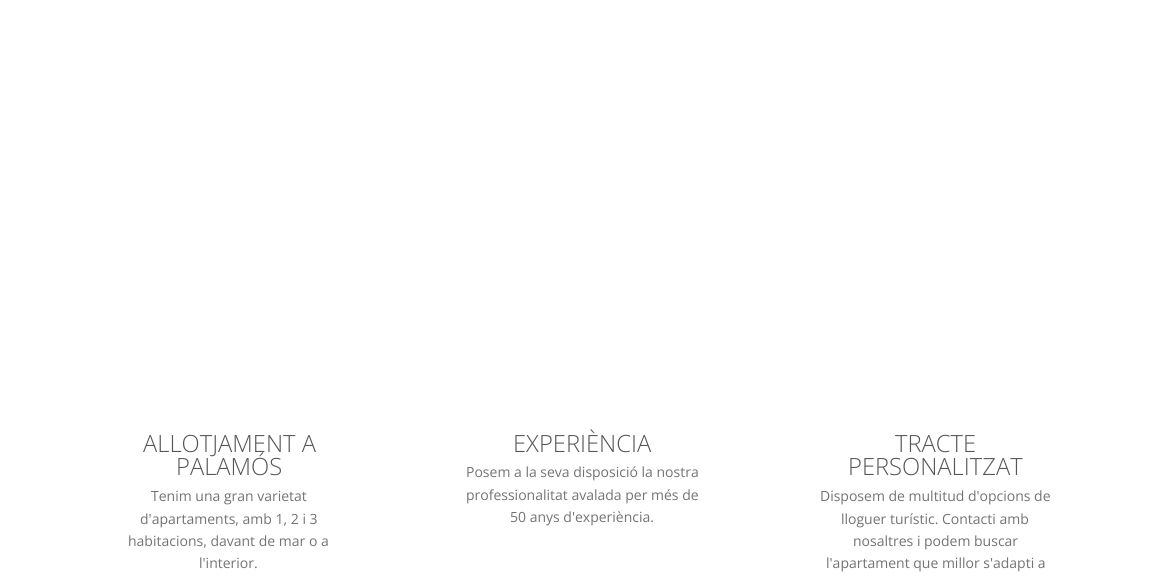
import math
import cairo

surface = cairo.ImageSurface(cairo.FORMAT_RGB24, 1164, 580)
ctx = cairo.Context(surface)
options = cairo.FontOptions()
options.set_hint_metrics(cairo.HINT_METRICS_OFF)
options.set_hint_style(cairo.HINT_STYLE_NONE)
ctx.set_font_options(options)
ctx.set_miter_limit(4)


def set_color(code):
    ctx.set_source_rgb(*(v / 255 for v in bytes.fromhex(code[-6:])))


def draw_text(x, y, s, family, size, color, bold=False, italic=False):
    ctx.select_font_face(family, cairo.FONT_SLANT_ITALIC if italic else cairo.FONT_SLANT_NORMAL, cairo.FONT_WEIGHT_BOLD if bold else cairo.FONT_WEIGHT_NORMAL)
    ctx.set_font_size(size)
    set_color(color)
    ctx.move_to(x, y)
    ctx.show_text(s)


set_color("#ffffff")
ctx.paint()
draw_text(143, 452, "ALLOTJAMENT A", "Open Sans Light", 23.75, "#565656")
draw_text(176, 475, "PALAMÓS", "Open Sans Light", 23.75, "#565656")
draw_text(151, 501, "Tenim una gran varietat", "Open Sans", 14, "#737373")
draw_text(140, 524, "d'apartaments, amb 1, 2 i 3", "Open Sans", 14, "#737373")
draw_text(128, 546, "habitacions, davant de mar o a", "Open Sans", 14, "#737373")
draw_text(199, 568, "l'interior.", "Open Sans", 14, "#737373")
draw_text(513, 452, "EXPERIÈNCIA", "Open Sans Light", 23.75, "#565656")
draw_text(466, 477, "Posem a la seva disposició la nostra", "Open Sans", 14, "#737373")
draw_text(466, 500, "professionalitat avalada per més de", "Open Sans", 14, "#737373")
draw_text(510, 522, "50 anys d'experiència.", "Open Sans", 14, "#737373")
draw_text(895, 452, "TRACTE", "Open Sans Light", 23.75, "#565656")
draw_text(848, 475, "PERSONALITZAT", "Open Sans Light", 23.75, "#565656")
draw_text(820, 501, "Disposem de multitud d'opcions de", "Open Sans", 14, "#737373")
draw_text(841, 524, "lloguer turístic. Contacti amb", "Open Sans", 14, "#737373")
draw_text(853, 546, "nosaltres i podem buscar", "Open Sans", 14, "#737373")
draw_text(826, 568, "l'apartament que millor s'adapti a", "Open Sans", 14, "#737373")
surface.write_to_png("output.png")
